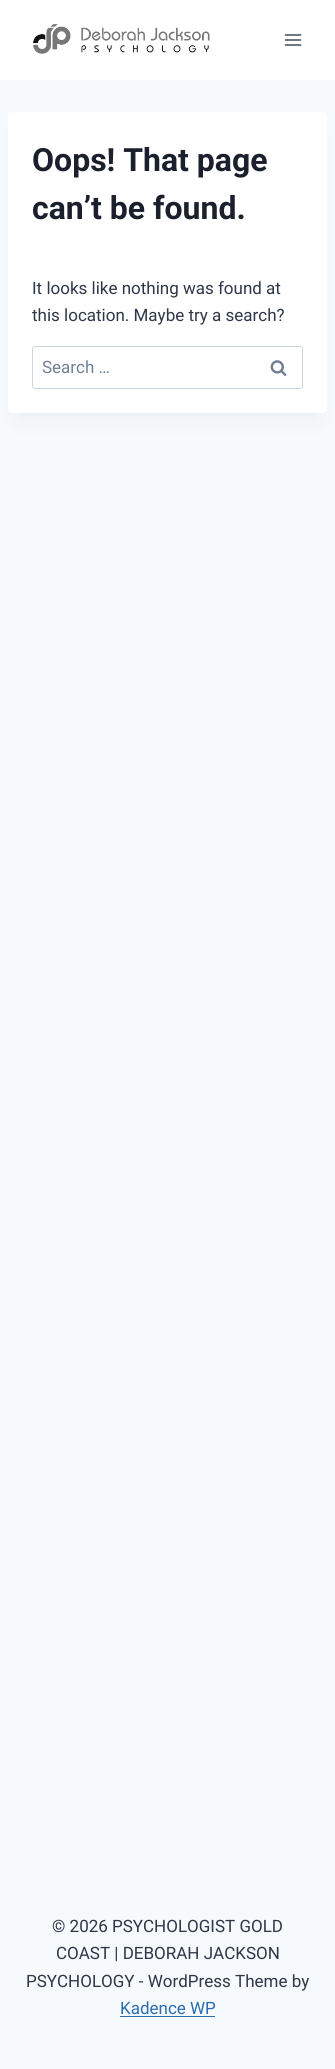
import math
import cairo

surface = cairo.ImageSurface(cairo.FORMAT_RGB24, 335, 2069)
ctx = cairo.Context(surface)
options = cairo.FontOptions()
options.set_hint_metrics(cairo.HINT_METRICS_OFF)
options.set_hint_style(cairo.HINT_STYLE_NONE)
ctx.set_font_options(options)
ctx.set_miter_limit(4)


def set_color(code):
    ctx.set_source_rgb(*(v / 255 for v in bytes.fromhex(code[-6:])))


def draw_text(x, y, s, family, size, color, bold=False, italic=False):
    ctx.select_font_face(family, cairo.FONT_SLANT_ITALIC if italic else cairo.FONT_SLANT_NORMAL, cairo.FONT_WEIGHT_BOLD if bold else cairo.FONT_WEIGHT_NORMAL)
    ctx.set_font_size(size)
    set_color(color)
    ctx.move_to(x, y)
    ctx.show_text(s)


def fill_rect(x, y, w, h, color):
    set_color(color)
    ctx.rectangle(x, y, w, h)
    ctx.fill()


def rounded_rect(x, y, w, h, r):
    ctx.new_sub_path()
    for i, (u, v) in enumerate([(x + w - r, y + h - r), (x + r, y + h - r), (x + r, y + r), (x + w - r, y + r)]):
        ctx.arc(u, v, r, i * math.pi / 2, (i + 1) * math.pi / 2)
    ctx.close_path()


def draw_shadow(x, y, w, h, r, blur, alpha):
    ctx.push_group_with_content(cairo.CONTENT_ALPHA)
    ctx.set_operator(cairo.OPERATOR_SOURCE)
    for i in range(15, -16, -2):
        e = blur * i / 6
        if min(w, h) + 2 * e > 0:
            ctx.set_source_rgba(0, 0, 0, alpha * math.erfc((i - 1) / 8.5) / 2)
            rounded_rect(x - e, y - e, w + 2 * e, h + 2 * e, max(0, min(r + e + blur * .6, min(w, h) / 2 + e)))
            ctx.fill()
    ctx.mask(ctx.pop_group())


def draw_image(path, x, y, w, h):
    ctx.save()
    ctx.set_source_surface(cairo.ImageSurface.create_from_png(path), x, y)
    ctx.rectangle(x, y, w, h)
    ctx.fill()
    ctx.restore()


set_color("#f7fafc")
ctx.paint()
fill_rect(0, 0, 335, 80, "#ffffff")
draw_image("assets/img1.png", 33, 24, 177, 30)
draw_image("assets/img2.png", 284, 34, 18, 12)
set_color("#000000")
draw_shadow(18, 137, 299, 281, 0, 12.5, 0.05)
set_color("#ffffff")
rounded_rect(8, 112, 319, 301, 4)
ctx.fill()
draw_text(32, 171, "Oops! That page", "Roboto", 32, "#1a202c", bold=True)
draw_text(32, 219, "can’t be found.", "Roboto", 32, "#1a202c", bold=True)
draw_text(32, 294, "It looks like nothing was found at", "Roboto", 17, "#2d3748")
draw_text(32, 321, "this location. Maybe try a search?", "Roboto", 17, "#2d3748")
rounded_rect(32.5, 346.5, 270, 42, 2.5)
set_color("#cbd5e0")
ctx.set_line_width(1)
ctx.stroke()
draw_text(42, 373, "Search …", "Roboto", 17, "#718096")
draw_image("assets/img3.png", 270, 360, 17, 16)
draw_text(52, 1932, "© 2026 PSYCHOLOGIST GOLD", "Roboto", 17, "#2d3748")
draw_text(56, 1959, "COAST | DEBORAH JACKSON", "Roboto", 17, "#2d3748")
draw_text(26, 1987, "PSYCHOLOGY - WordPress Theme by", "Roboto", 17, "#2d3748")
draw_text(120, 2014, "Kadence WP", "Roboto", 17, "#2b6cb0")
fill_rect(120, 2016, 95, 1, "#2b6cb0")
surface.write_to_png("output.png")
